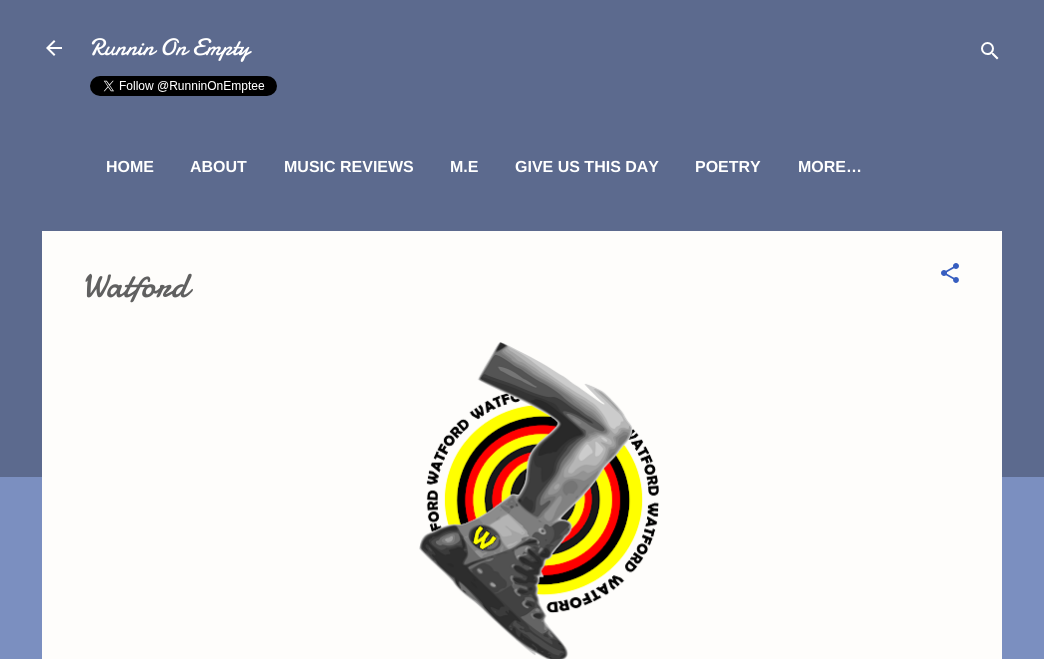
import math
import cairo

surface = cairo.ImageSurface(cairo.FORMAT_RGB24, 1044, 659)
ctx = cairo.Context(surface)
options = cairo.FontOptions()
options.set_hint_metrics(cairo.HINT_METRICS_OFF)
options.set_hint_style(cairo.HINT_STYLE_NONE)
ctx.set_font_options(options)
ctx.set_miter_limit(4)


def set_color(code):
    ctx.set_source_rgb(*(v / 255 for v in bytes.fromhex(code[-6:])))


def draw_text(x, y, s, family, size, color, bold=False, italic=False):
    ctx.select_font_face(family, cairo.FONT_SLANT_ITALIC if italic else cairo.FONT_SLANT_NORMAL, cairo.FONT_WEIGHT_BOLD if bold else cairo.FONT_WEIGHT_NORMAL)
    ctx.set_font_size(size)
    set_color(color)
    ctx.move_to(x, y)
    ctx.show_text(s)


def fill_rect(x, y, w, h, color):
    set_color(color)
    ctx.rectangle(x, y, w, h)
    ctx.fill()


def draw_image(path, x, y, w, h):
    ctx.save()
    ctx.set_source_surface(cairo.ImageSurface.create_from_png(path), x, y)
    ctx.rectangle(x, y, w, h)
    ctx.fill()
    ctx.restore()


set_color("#7b8fc0")
ctx.paint()
fill_rect(0, 0, 1044, 477, "#5c6a8e")
draw_image("assets/img1.png", 46, 40, 16, 16)
draw_text(90, 55, "Runnin On Empty", "Damion", 24, "#ffffff")
draw_image("assets/img2.png", 90, 76, 187, 20)
draw_text(106, 172, "HOME", "Liberation Sans", 16, "#ffffff", bold=True)
draw_text(190, 172, "ABOUT", "Liberation Sans", 16, "#ffffff", bold=True)
draw_text(284, 172, "MUSIC REVIEWS", "Liberation Sans", 16, "#ffffff", bold=True)
draw_text(450, 172, "M.E", "Liberation Sans", 16, "#ffffff", bold=True)
draw_text(515, 172, "GIVE US THIS DAY", "Liberation Sans", 16, "#ffffff", bold=True)
draw_text(695, 172, "POETRY", "Liberation Sans", 16, "#ffffff", bold=True)
draw_text(798, 172, "MORE…", "Liberation Sans", 16, "#ffffff", bold=True)
draw_image("assets/img3.png", 981, 42, 18, 18)
fill_rect(42, 231, 960, 428, "#fefdfb")
draw_text(82, 297, "Watford", "Damion", 36, "#606060")
draw_image("assets/img4.png", 941, 263, 18, 20)
draw_image("assets/img5.png", 419, 342, 240, 317)
surface.write_to_png("output.png")
